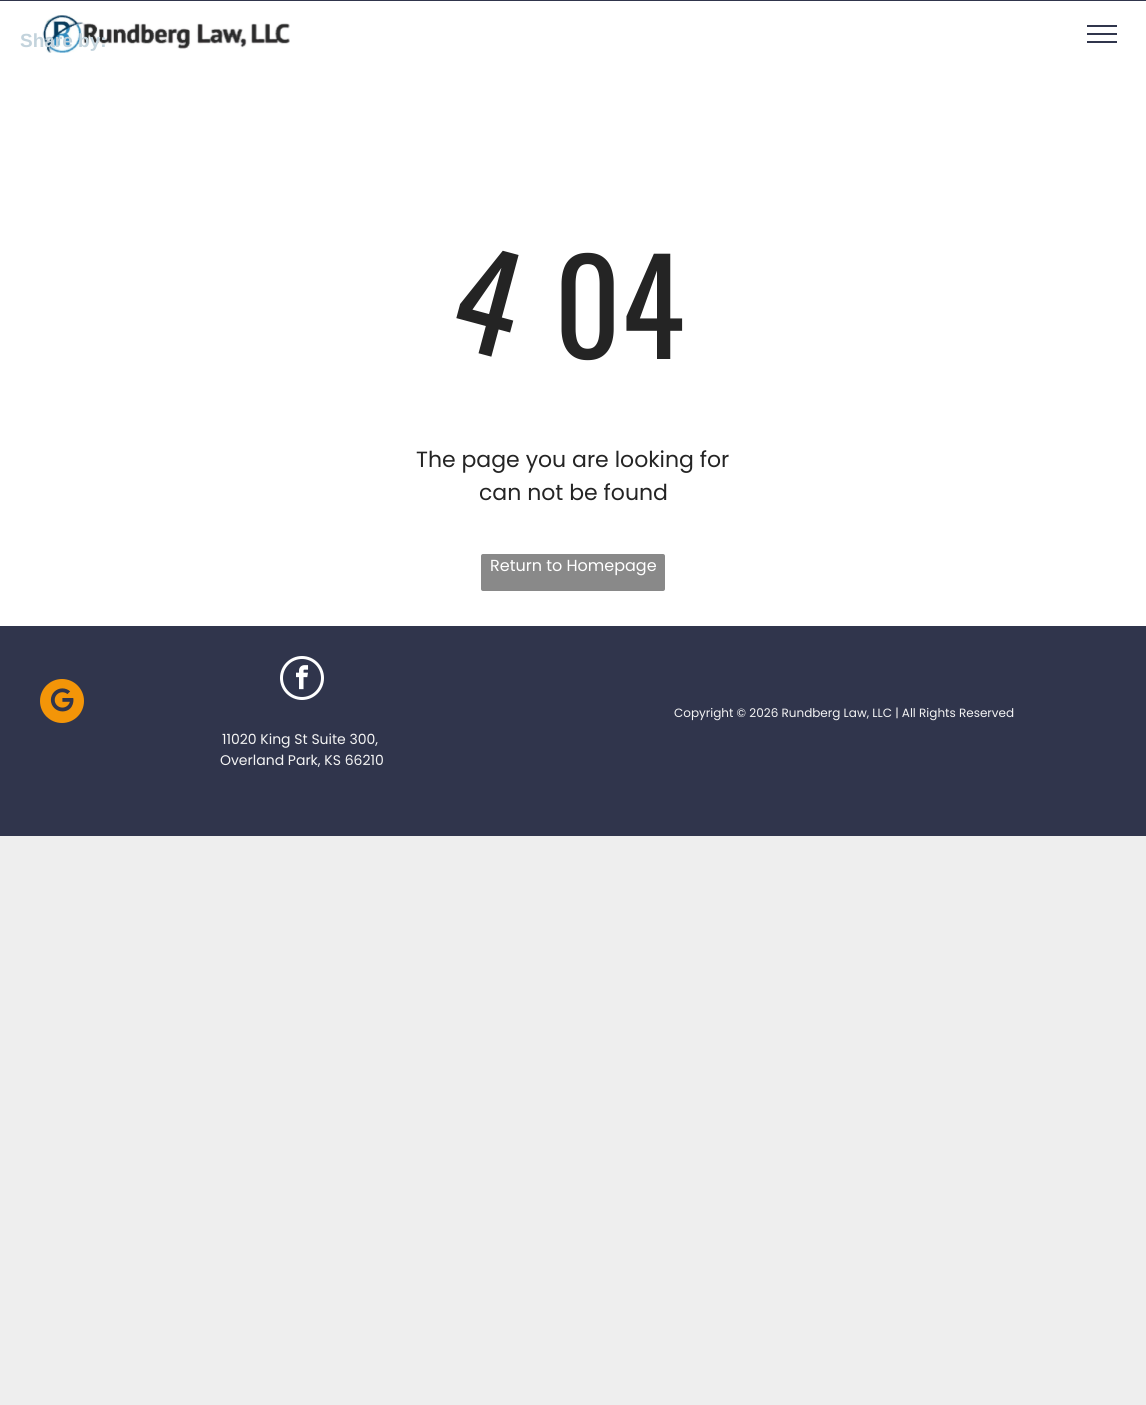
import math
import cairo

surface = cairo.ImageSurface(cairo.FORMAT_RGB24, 1146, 1405)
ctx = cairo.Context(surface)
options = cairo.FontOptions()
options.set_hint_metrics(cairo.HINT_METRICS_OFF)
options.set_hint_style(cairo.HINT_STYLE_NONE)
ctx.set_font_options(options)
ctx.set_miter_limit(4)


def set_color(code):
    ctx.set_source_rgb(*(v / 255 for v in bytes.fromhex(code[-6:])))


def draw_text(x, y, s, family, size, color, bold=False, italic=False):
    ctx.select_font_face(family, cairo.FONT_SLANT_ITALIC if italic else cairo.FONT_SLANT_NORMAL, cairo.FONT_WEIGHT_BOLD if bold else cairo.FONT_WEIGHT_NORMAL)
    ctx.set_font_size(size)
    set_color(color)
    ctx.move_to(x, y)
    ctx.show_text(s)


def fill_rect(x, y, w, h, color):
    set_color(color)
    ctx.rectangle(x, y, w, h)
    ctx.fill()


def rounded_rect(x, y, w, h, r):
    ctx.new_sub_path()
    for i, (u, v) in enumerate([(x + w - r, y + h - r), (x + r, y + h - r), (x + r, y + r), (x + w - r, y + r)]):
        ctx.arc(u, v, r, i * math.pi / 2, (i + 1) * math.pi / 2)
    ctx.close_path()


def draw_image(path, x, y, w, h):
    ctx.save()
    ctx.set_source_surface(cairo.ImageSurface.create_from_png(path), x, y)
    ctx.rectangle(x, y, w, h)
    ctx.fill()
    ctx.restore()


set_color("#eeeeee")
ctx.paint()
fill_rect(0, 1, 1146, 625, "#ffffff")
draw_image("assets/img1.png", 42, 15, 248, 38)
draw_text(20, 47, "Share by:", "Liberation Sans", 19, "#c3d3dc", bold=True)
fill_rect(0, 0, 1146, 1, "#30354c")
fill_rect(1087, 25, 30, 2, "#30354c")
fill_rect(1087, 33, 30, 2, "#30354c")
fill_rect(1087, 41, 30, 2, "#30354c")
ctx.save()
ctx.translate(444, 344)
ctx.rotate(15 * math.pi / 180)
draw_text(0, 0, "4", "Oswald", 130, "#242424")
ctx.restore()
draw_text(554, 359, "04", "Oswald", 130, "#242424")
draw_text(416, 467, "The page you are looking for", "Poppins", 22, "#242424")
draw_text(479, 500, "can not be found", "Poppins", 22, "#242424")
set_color("#898989")
rounded_rect(481, 554, 184, 37, 2)
ctx.fill()
draw_text(490, 571, "Return to Homepage", "Poppins", 16, "#ffffff")
fill_rect(0, 626, 1146, 210, "#30354c")
set_color("#f39508")
ctx.new_path()
ctx.arc(62, 701, 22, 0, 2 * math.pi)
ctx.fill()
draw_image("assets/img2.png", 50, 688, 24, 24)
draw_text(674, 717, "Copyright © 2026 Rundberg Law, LLC | All Rights Reserved", "Poppins", 12, "#f4f4f4")
ctx.new_path()
ctx.arc(302, 678, 20.5, 0, 2 * math.pi)
set_color("#ffffff")
ctx.set_line_width(3)
ctx.stroke()
draw_image("assets/img3.png", 296, 665, 13, 25)
draw_text(222, 744, "11020 King St Suite 300,", "Poppins", 14, "#f4f4f4")
draw_text(220, 765, "Overland Park, KS 66210", "Poppins", 14, "#f4f4f4")
surface.write_to_png("output.png")
